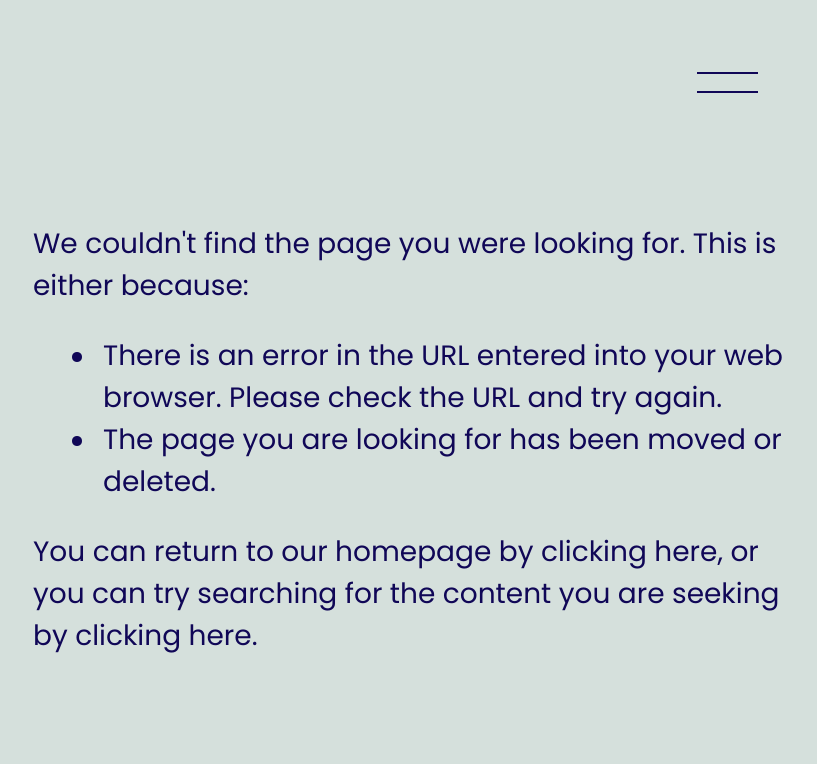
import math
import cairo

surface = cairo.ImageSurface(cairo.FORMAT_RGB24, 817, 764)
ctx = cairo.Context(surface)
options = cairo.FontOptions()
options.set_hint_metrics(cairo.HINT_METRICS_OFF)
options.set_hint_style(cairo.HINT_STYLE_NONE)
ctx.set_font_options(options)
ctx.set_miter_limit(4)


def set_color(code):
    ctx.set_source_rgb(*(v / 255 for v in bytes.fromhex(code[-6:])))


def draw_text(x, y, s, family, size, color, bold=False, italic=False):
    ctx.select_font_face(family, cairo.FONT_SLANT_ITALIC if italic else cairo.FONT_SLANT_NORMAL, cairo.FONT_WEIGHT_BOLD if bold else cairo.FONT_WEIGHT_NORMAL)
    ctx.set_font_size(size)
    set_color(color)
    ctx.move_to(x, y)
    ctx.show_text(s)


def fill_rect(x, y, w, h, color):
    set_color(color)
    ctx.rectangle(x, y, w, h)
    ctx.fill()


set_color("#d5e0dc")
ctx.paint()
fill_rect(697, 72, 61, 2, "#100757")
fill_rect(697, 91, 61, 2, "#100757")
draw_text(33, 253, "We couldn't find the page you were looking for. This is", "Poppins", 28, "#100757")
draw_text(33, 295, "either because:", "Poppins", 28, "#100757")
ctx.new_path()
ctx.arc(77, 357, 5, 0, 2 * math.pi)
ctx.fill()
draw_text(103, 365, "There is an error in the URL entered into your web", "Poppins", 28, "#100757")
draw_text(103, 407, "browser. Please check the URL and try again.", "Poppins", 28, "#100757")
ctx.new_path()
ctx.arc(77, 441, 5, 0, 2 * math.pi)
ctx.fill()
draw_text(103, 449, "The page you are looking for has been moved or", "Poppins", 28, "#100757")
draw_text(103, 491, "deleted.", "Poppins", 28, "#100757")
draw_text(33, 561, "You can return to our homepage by clicking here, or", "Poppins", 28, "#100757")
draw_text(33, 603, "you can try searching for the content you are seeking", "Poppins", 28, "#100757")
draw_text(33, 645, "by clicking here.", "Poppins", 28, "#100757")
surface.write_to_png("output.png")
